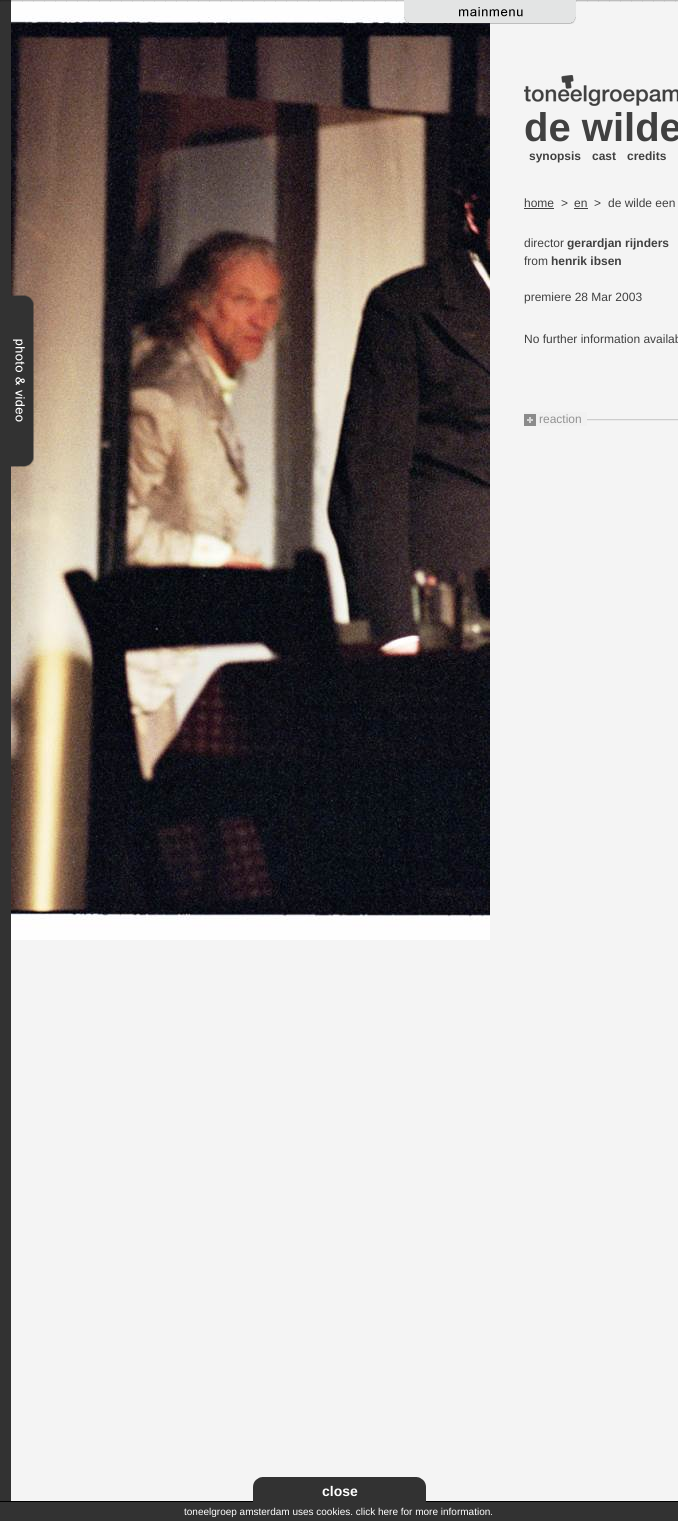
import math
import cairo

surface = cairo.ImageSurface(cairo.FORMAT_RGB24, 678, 1521)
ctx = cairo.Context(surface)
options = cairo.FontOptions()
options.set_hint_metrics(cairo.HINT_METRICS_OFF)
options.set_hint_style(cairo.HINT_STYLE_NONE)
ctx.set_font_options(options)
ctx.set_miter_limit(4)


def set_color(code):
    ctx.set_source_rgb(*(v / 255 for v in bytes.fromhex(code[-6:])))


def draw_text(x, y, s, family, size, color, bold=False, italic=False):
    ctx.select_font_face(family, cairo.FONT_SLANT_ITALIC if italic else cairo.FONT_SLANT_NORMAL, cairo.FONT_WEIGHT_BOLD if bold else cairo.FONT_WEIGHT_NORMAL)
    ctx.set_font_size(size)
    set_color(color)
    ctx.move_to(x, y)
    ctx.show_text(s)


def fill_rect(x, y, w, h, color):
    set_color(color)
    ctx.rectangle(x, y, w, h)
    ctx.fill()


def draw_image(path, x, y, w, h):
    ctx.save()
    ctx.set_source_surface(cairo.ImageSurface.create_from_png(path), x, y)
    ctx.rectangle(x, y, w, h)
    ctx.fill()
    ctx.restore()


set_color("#f4f4f4")
ctx.paint()
fill_rect(0, 0, 11, 1521, "#323232")
draw_image("assets/img5.png", 11, 0, 479, 940)
draw_image("assets/img1.png", 0, 0, 404, 2)
draw_image("assets/img2.png", 404, 0, 172, 24)
draw_image("assets/img3.png", 576, 0, 102, 2)
draw_image("assets/img4.png", 11, 295, 23, 172)
draw_image("assets/img6.png", 524, 75, 154, 31)
draw_text(524, 141, "de wilde", "Liberation Sans", 40, "#404040", bold=True)
draw_text(529, 160, "synopsis", "Liberation Sans", 12, "#404040", bold=True)
draw_text(592, 160, "cast", "Liberation Sans", 12, "#404040", bold=True)
draw_text(627, 160, "credits", "Liberation Sans", 12, "#404040", bold=True)
draw_text(524, 207, "home", "Liberation Sans", 12, "#404040")
fill_rect(524, 208, 30, 1, "#404040")
draw_text(561, 207, ">", "Liberation Sans", 12, "#404040")
draw_text(574, 207, "en", "Liberation Sans", 12, "#404040")
fill_rect(574, 208, 14, 1, "#404040")
draw_text(594, 207, ">", "Liberation Sans", 12, "#404040")
draw_text(608, 207, "de wilde een", "Liberation Sans", 12, "#404040")
draw_text(524, 247, "director", "Liberation Sans", 12, "#404040")
draw_text(567, 247, "gerardjan rijnders", "Liberation Sans", 12, "#404040", bold=True)
draw_text(524, 265, "from", "Liberation Sans", 12, "#404040")
draw_text(551, 265, "henrik ibsen", "Liberation Sans", 12, "#404040", bold=True)
draw_text(524, 301, "premiere 28 Mar 2003", "Liberation Sans", 12, "#404040")
draw_text(524, 343, "No further information availab", "Liberation Sans", 12, "#404040")
draw_image("assets/img7.png", 587, 419, 91, 2)
fill_rect(524, 412, 63, 14, "#f1f1f1")
draw_image("assets/img8.png", 524, 414, 12, 12)
draw_text(539, 423, "reaction", "Liberation Sans", 12, "#929292")
fill_rect(0, 1501, 678, 1, "#000000")
draw_image("assets/img9.png", 253, 1477, 173, 25)
draw_text(322, 1496, "close", "Liberation Sans", 14, "#ffffff", bold=True)
fill_rect(11, 1502, 667, 19, "#323232")
draw_text(184, 1515, "toneelgroep amsterdam uses cookies. click here for more information.", "Liberation Sans", 10, "#ffffff")
surface.write_to_png("output.png")
